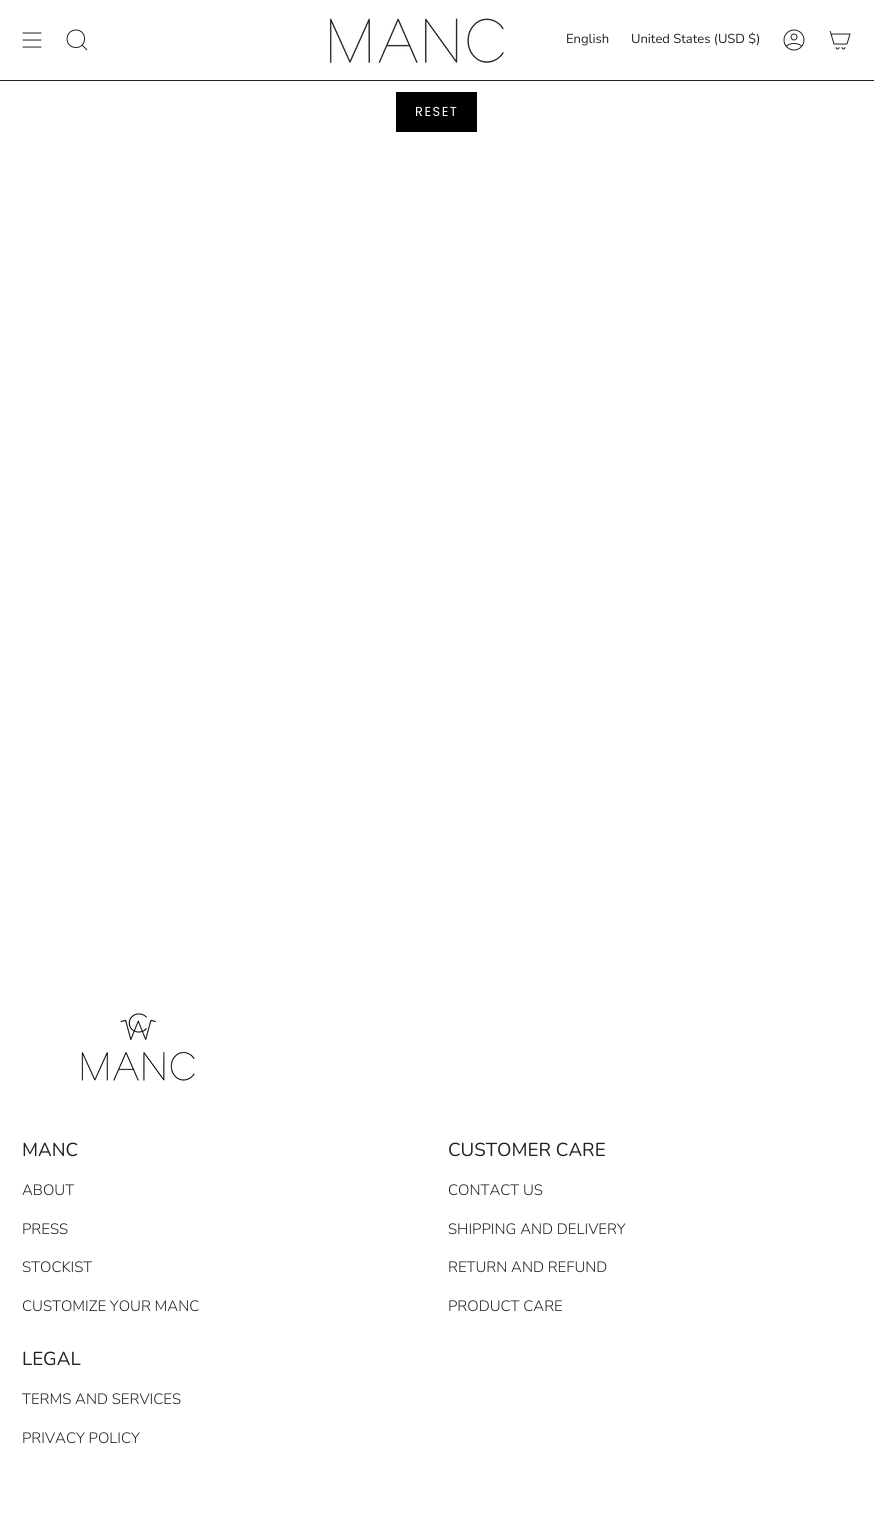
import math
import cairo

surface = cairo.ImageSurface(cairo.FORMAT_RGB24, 874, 1515)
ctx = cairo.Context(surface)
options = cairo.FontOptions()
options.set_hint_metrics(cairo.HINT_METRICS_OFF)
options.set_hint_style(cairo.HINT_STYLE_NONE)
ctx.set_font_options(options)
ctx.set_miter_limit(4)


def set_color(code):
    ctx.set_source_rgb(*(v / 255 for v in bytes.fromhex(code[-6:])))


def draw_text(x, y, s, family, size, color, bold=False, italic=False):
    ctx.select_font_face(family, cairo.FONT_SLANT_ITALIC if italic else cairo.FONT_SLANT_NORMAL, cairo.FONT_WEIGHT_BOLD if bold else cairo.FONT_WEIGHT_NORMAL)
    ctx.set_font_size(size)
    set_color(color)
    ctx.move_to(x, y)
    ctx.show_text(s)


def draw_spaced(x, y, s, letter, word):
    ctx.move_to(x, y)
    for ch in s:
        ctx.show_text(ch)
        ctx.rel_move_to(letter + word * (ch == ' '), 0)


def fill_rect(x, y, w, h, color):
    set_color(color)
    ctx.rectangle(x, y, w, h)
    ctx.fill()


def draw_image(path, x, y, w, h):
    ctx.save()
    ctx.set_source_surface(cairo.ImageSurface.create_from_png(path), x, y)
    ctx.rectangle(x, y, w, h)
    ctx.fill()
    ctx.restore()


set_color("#ffffff")
ctx.paint()
ctx.new_path()
ctx.move_to(23, 33)
ctx.line_to(41, 33)
ctx.move_to(23, 40)
ctx.line_to(41, 40)
ctx.move_to(23, 47)
ctx.line_to(41, 47)
set_color("#212121")
ctx.set_line_width(1)
ctx.set_line_cap(cairo.LINE_CAP_ROUND)
ctx.set_line_join(cairo.LINE_JOIN_ROUND)
ctx.stroke()
ctx.new_path()
ctx.move_to(76, 30)
ctx.curve_to(87.5, 30, 87.5, 48, 75.5, 47.5)
ctx.curve_to(64, 47, 64.5, 30, 76, 30)
ctx.close_path()
ctx.move_to(82, 45)
ctx.line_to(87, 50)
ctx.set_line_cap(cairo.LINE_CAP_BUTT)
ctx.set_line_join(cairo.LINE_JOIN_MITER)
ctx.stroke()
draw_image("assets/img1.png", 329, 18, 175, 45)
draw_text(566, 43, "English", "Nunito", 13, "#212121")
draw_text(631, 43, "United States (USD $)", "Nunito", 13, "#212121")
draw_image("assets/img2.png", 783, 29, 22, 22)
draw_image("assets/img3.png", 829, 31, 22, 19)
fill_rect(0, 80, 874, 1, "#212121")
fill_rect(396, 92, 81, 40, "#000000")
ctx.select_font_face("Poppins")
set_color("#ffffff")
draw_spaced(415, 116, "RESET", 1.5, 0)
draw_image("assets/img4.png", 81, 1013, 114, 68)
draw_text(22, 1156, "MANC", "Nunito", 18.75, "#212121")
draw_text(22, 1195, "ABOUT", "Nunito Light", 15, "#212121")
draw_text(22, 1234, "PRESS", "Nunito Light", 15, "#212121")
draw_text(22, 1272, "STOCKIST", "Nunito Light", 15, "#212121")
draw_text(22, 1311, "CUSTOMIZE YOUR MANC", "Nunito Light", 15, "#212121")
draw_text(448, 1156, "CUSTOMER CARE", "Nunito", 18.75, "#212121")
draw_text(448, 1195, "CONTACT US", "Nunito Light", 15, "#212121")
draw_text(448, 1234, "SHIPPING AND DELIVERY", "Nunito Light", 15, "#212121")
draw_text(448, 1272, "RETURN AND REFUND", "Nunito Light", 15, "#212121")
draw_text(448, 1311, "PRODUCT CARE", "Nunito Light", 15, "#212121")
draw_text(22, 1365, "LEGAL", "Nunito", 18.75, "#212121")
draw_text(22, 1404, "TERMS AND SERVICES", "Nunito Light", 15, "#212121")
draw_text(22, 1443, "PRIVACY POLICY", "Nunito Light", 15, "#212121")
surface.write_to_png("output.png")
